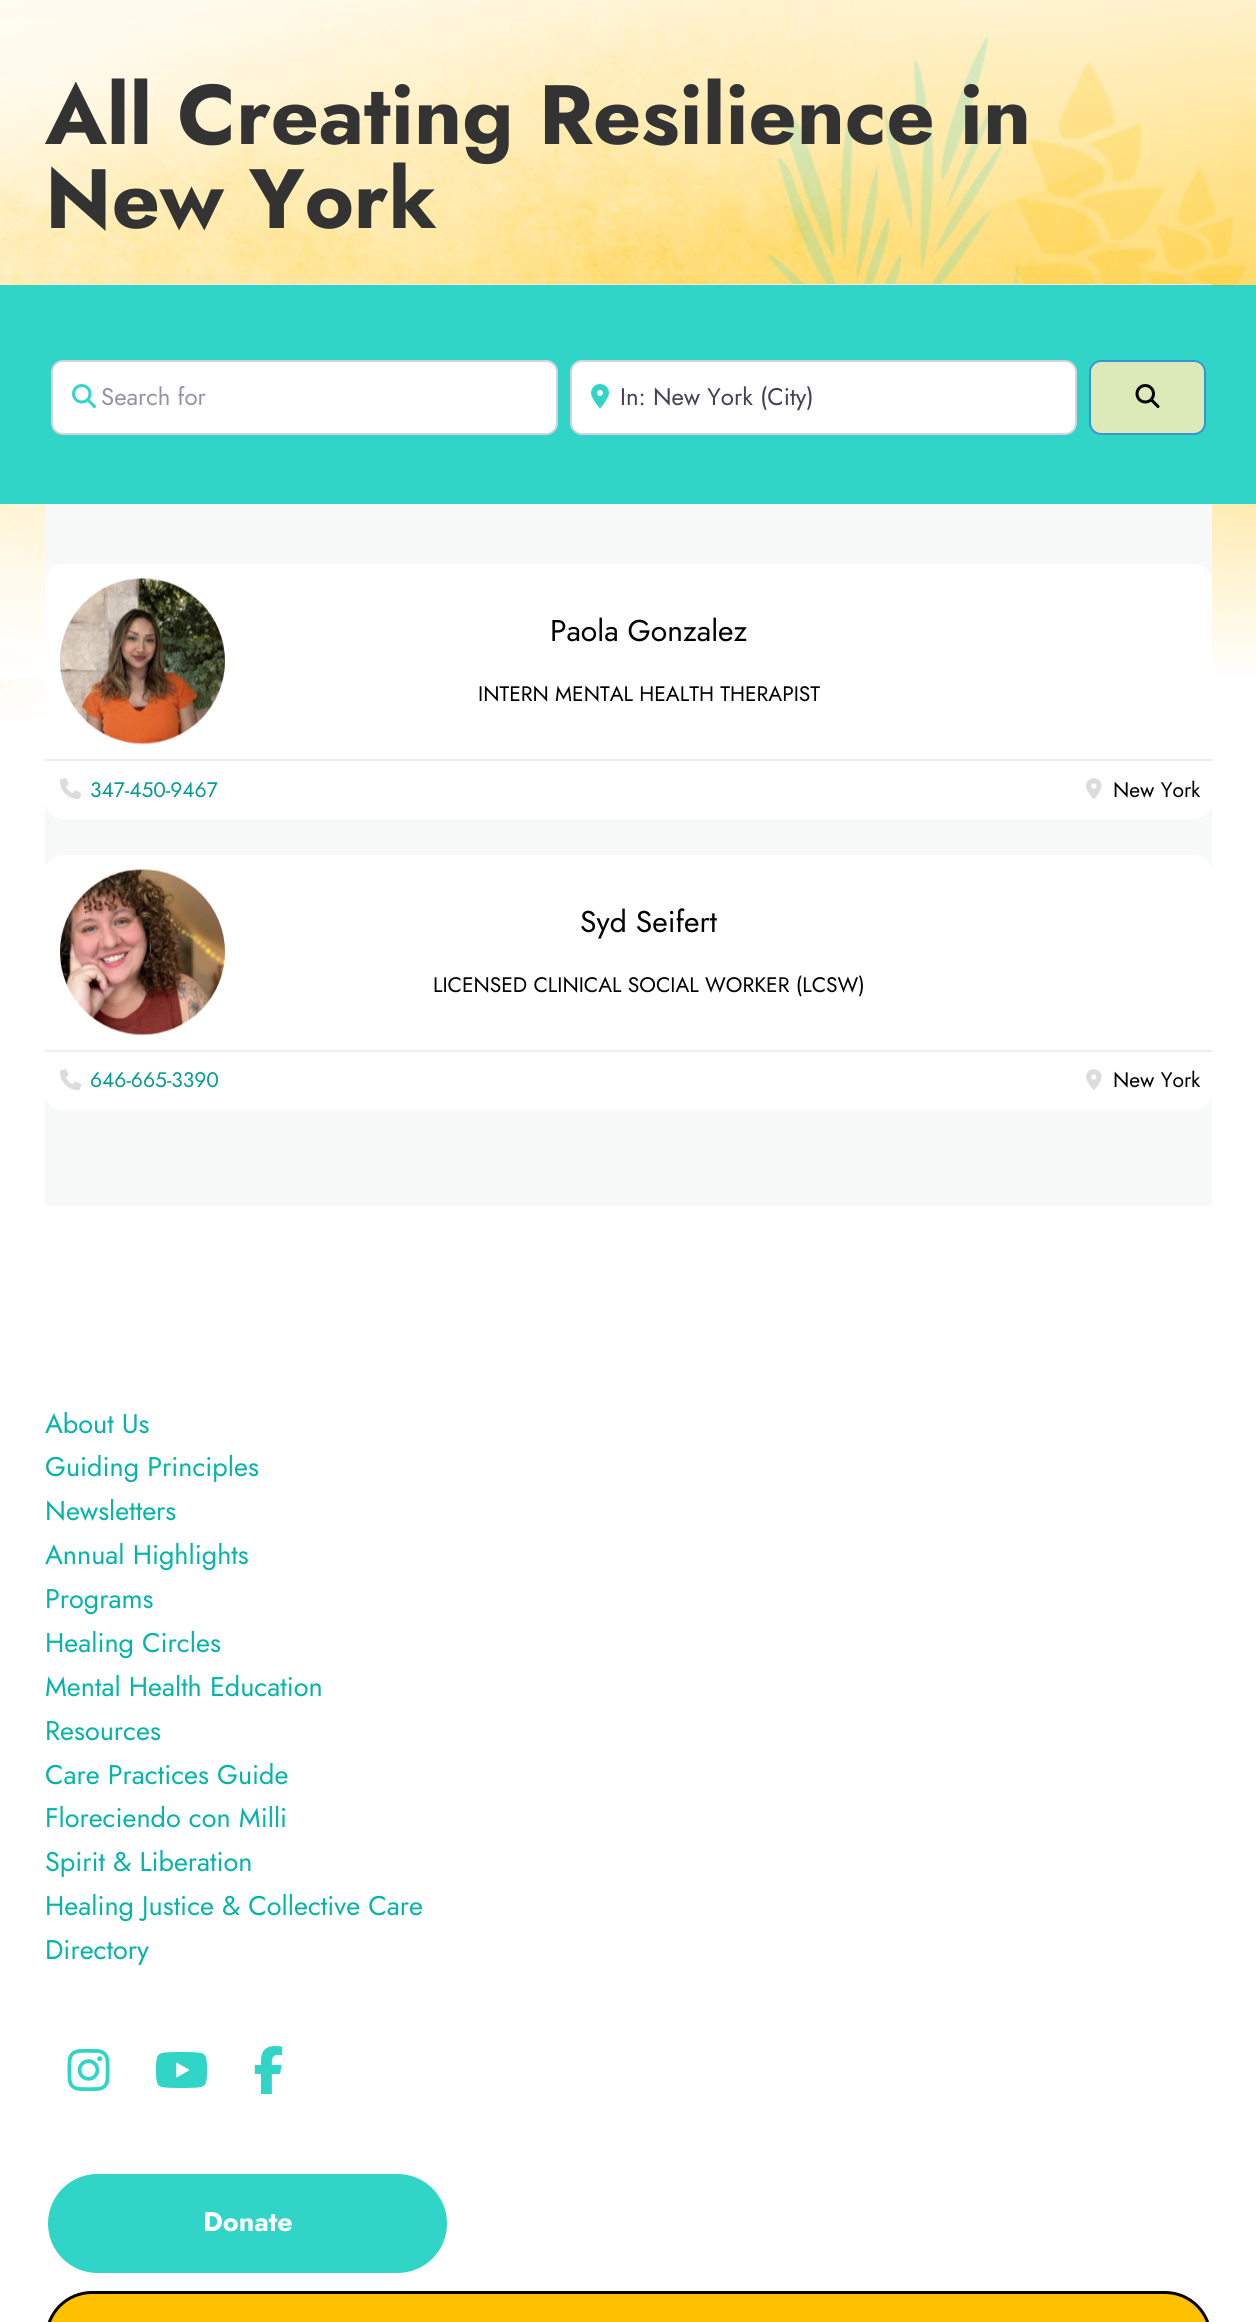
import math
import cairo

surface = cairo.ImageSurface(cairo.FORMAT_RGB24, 1256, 2322)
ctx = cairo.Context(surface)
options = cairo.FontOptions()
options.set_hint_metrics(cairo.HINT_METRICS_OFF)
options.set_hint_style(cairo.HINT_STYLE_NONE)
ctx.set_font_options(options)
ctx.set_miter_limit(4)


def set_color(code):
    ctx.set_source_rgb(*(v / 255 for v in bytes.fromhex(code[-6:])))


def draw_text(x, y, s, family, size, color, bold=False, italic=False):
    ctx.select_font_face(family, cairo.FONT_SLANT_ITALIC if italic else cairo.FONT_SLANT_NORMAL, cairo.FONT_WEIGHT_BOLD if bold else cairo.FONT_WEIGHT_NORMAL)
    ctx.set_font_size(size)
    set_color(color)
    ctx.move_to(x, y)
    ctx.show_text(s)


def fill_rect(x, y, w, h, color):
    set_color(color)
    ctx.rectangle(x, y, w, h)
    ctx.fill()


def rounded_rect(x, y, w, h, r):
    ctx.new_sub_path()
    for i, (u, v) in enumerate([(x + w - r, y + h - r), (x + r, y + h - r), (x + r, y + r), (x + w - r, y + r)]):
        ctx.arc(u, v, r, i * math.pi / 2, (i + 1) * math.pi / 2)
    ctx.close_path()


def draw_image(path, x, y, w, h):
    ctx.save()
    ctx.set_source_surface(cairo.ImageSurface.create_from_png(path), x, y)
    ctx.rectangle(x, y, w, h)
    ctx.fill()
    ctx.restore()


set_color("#ffffff")
ctx.paint()
draw_image("assets/img1.png", 0, 0, 1256, 716)
draw_text(45, 144, "All Creating Resilience in", "Jost", 84, "#333333", bold=True)
draw_text(45, 228, "New York", "Jost", 84, "#333333", bold=True)
fill_rect(45, 504, 1167, 702, "#f7f9f9")
fill_rect(45, 284, 1167, 1, "#e8efed")
fill_rect(0, 285, 1256, 219, "#30d5c8")
set_color("#ffffff")
rounded_rect(52, 361, 505, 73, 11)
ctx.fill_preserve()
set_color("#d5d2dc")
ctx.stroke()
draw_image("assets/img2.png", 72, 384, 24, 24)
draw_text(101, 405, "Search for", "Jost", 24, "#9691a4")
set_color("#ffffff")
rounded_rect(571, 361, 505, 73, 11)
ctx.fill_preserve()
set_color("#d5d2dc")
ctx.stroke()
draw_image("assets/img3.png", 591, 384, 18, 24)
draw_text(620, 405, "In: New York (City)", "Jost", 24, "#454056")
set_color("#dbeab8")
rounded_rect(1090, 361, 115, 73, 11)
ctx.fill_preserve()
set_color("#3993d5")
ctx.stroke()
draw_image("assets/img4.png", 1135, 384, 25, 24)
set_color("#ffffff")
rounded_rect(45, 564, 1167, 255, 18)
ctx.fill()
draw_image("assets/img5.png", 60, 578, 165, 166)
draw_text(550, 641, "Paola Gonzalez", "Jost", 30, "#000000")
draw_text(478, 701, "INTERN MENTAL HEALTH THERAPIST", "Jost", 21, "#000000")
fill_rect(45, 759, 1167, 2, "#efecf3")
draw_image("assets/img6.png", 60, 778, 21, 21)
draw_text(90, 797, "347-450-9467", "Jost", 21, "#039b92")
draw_image("assets/img7.png", 1086, 778, 16, 21)
draw_text(1113, 797, "New York", "Jost", 21, "#000000")
set_color("#ffffff")
rounded_rect(45, 855, 1167, 255, 18)
ctx.fill()
draw_image("assets/img8.png", 60, 869, 165, 166)
draw_text(580, 932, "Syd Seifert", "Jost", 30, "#000000")
draw_text(433, 992, "LICENSED CLINICAL SOCIAL WORKER (LCSW)", "Jost", 21, "#000000")
fill_rect(45, 1050, 1167, 2, "#efecf3")
draw_image("assets/img6.png", 60, 1069, 21, 21)
draw_text(90, 1087, "646-665-3390", "Jost", 21, "#039b92")
draw_image("assets/img7.png", 1086, 1069, 16, 21)
draw_text(1113, 1087, "New York", "Jost", 21, "#000000")
draw_text(45, 1433, "About Us", "Jost", 27, "#04b4a9")
draw_text(45, 1476, "Guiding Principles", "Jost", 27, "#04b4a9")
draw_text(45, 1520, "Newsletters", "Jost", 27, "#04b4a9")
draw_text(45, 1564, "Annual Highlights", "Jost", 27, "#04b4a9")
draw_text(45, 1608, "Programs", "Jost", 27, "#04b4a9")
draw_text(45, 1652, "Healing Circles", "Jost", 27, "#04b4a9")
draw_text(45, 1696, "Mental Health Education", "Jost", 27, "#04b4a9")
draw_text(45, 1740, "Resources", "Jost", 27, "#04b4a9")
draw_text(45, 1784, "Care Practices Guide", "Jost", 27, "#04b4a9")
draw_text(45, 1827, "Floreciendo con Milli", "Jost", 27, "#04b4a9")
draw_text(45, 1871, "Spirit & Liberation", "Jost", 27, "#04b4a9")
draw_text(45, 1915, "Healing Justice & Collective Care", "Jost", 27, "#04b4a9")
draw_text(45, 1959, "Directory", "Jost", 27, "#04b4a9")
draw_image("assets/img9.png", 67, 2049, 43, 42)
draw_image("assets/img10.png", 155, 2052, 53, 36)
draw_image("assets/img11.png", 254, 2046, 29, 48)
set_color("#30d5c8")
rounded_rect(46.5, 2172.5, 402, 102, 51)
ctx.fill_preserve()
set_color("#ffffff")
ctx.set_line_width(3)
ctx.stroke()
draw_text(203, 2231, "Donate", "Jost", 27, "#ffffff", bold=True)
set_color("#ffc000")
rounded_rect(46.5, 2292.5, 1164, 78, 45.5)
ctx.fill_preserve()
set_color("#000000")
ctx.stroke()
surface.write_to_png("output.png")
